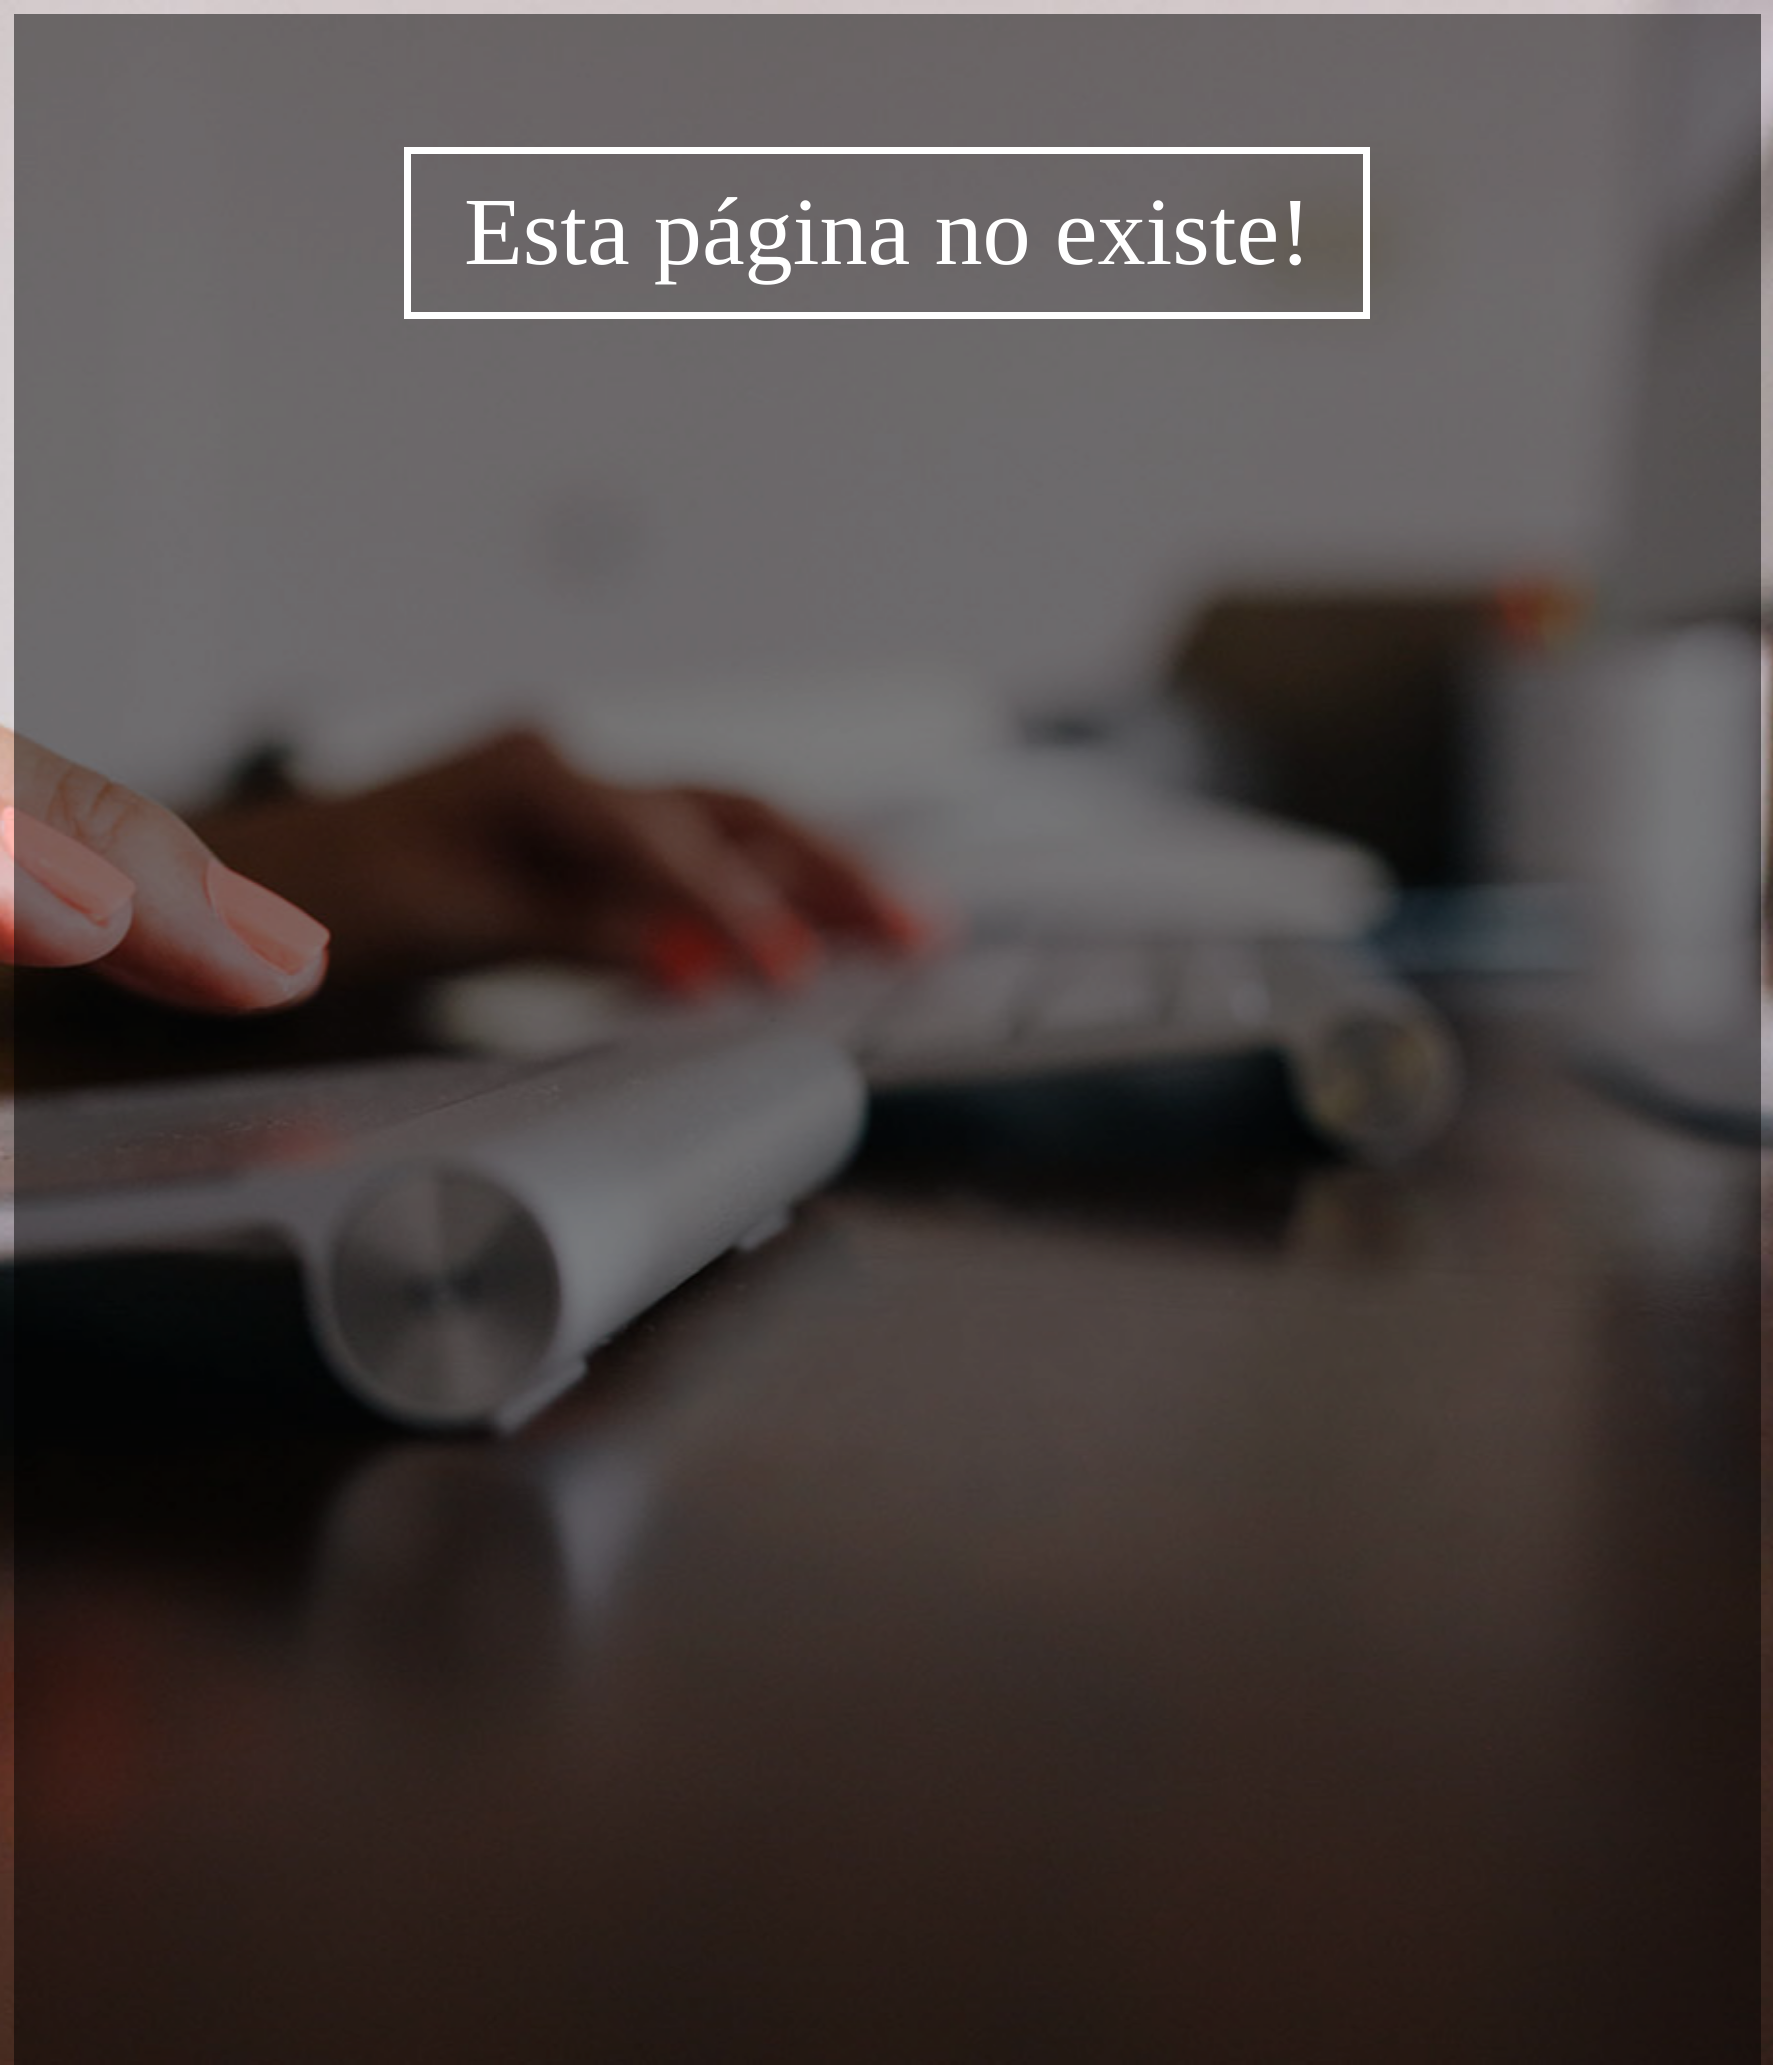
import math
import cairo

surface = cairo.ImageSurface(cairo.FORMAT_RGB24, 1773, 2065)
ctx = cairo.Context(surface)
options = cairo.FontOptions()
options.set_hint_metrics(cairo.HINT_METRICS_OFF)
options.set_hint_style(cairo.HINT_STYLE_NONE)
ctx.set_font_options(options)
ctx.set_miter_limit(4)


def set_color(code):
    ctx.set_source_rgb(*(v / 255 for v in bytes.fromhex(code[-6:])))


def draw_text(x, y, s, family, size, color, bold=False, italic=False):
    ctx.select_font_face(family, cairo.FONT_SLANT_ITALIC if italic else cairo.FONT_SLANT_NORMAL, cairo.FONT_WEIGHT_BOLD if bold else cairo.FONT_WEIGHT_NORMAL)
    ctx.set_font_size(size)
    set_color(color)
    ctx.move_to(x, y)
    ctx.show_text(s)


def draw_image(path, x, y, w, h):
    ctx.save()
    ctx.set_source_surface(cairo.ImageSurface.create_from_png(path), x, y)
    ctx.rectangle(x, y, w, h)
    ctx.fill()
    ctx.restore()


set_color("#ffffff")
ctx.paint()
draw_image("assets/img1.png", 0, 0, 1773, 2065)
ctx.rectangle(407.5, 150.5, 959, 165)
set_color("#ffffff")
ctx.set_line_width(7)
ctx.stroke()
draw_text(464, 264, "Esta página no existe!", "Liberation Serif", 96.25, "#ffffff")
surface.write_to_png("output.png")
